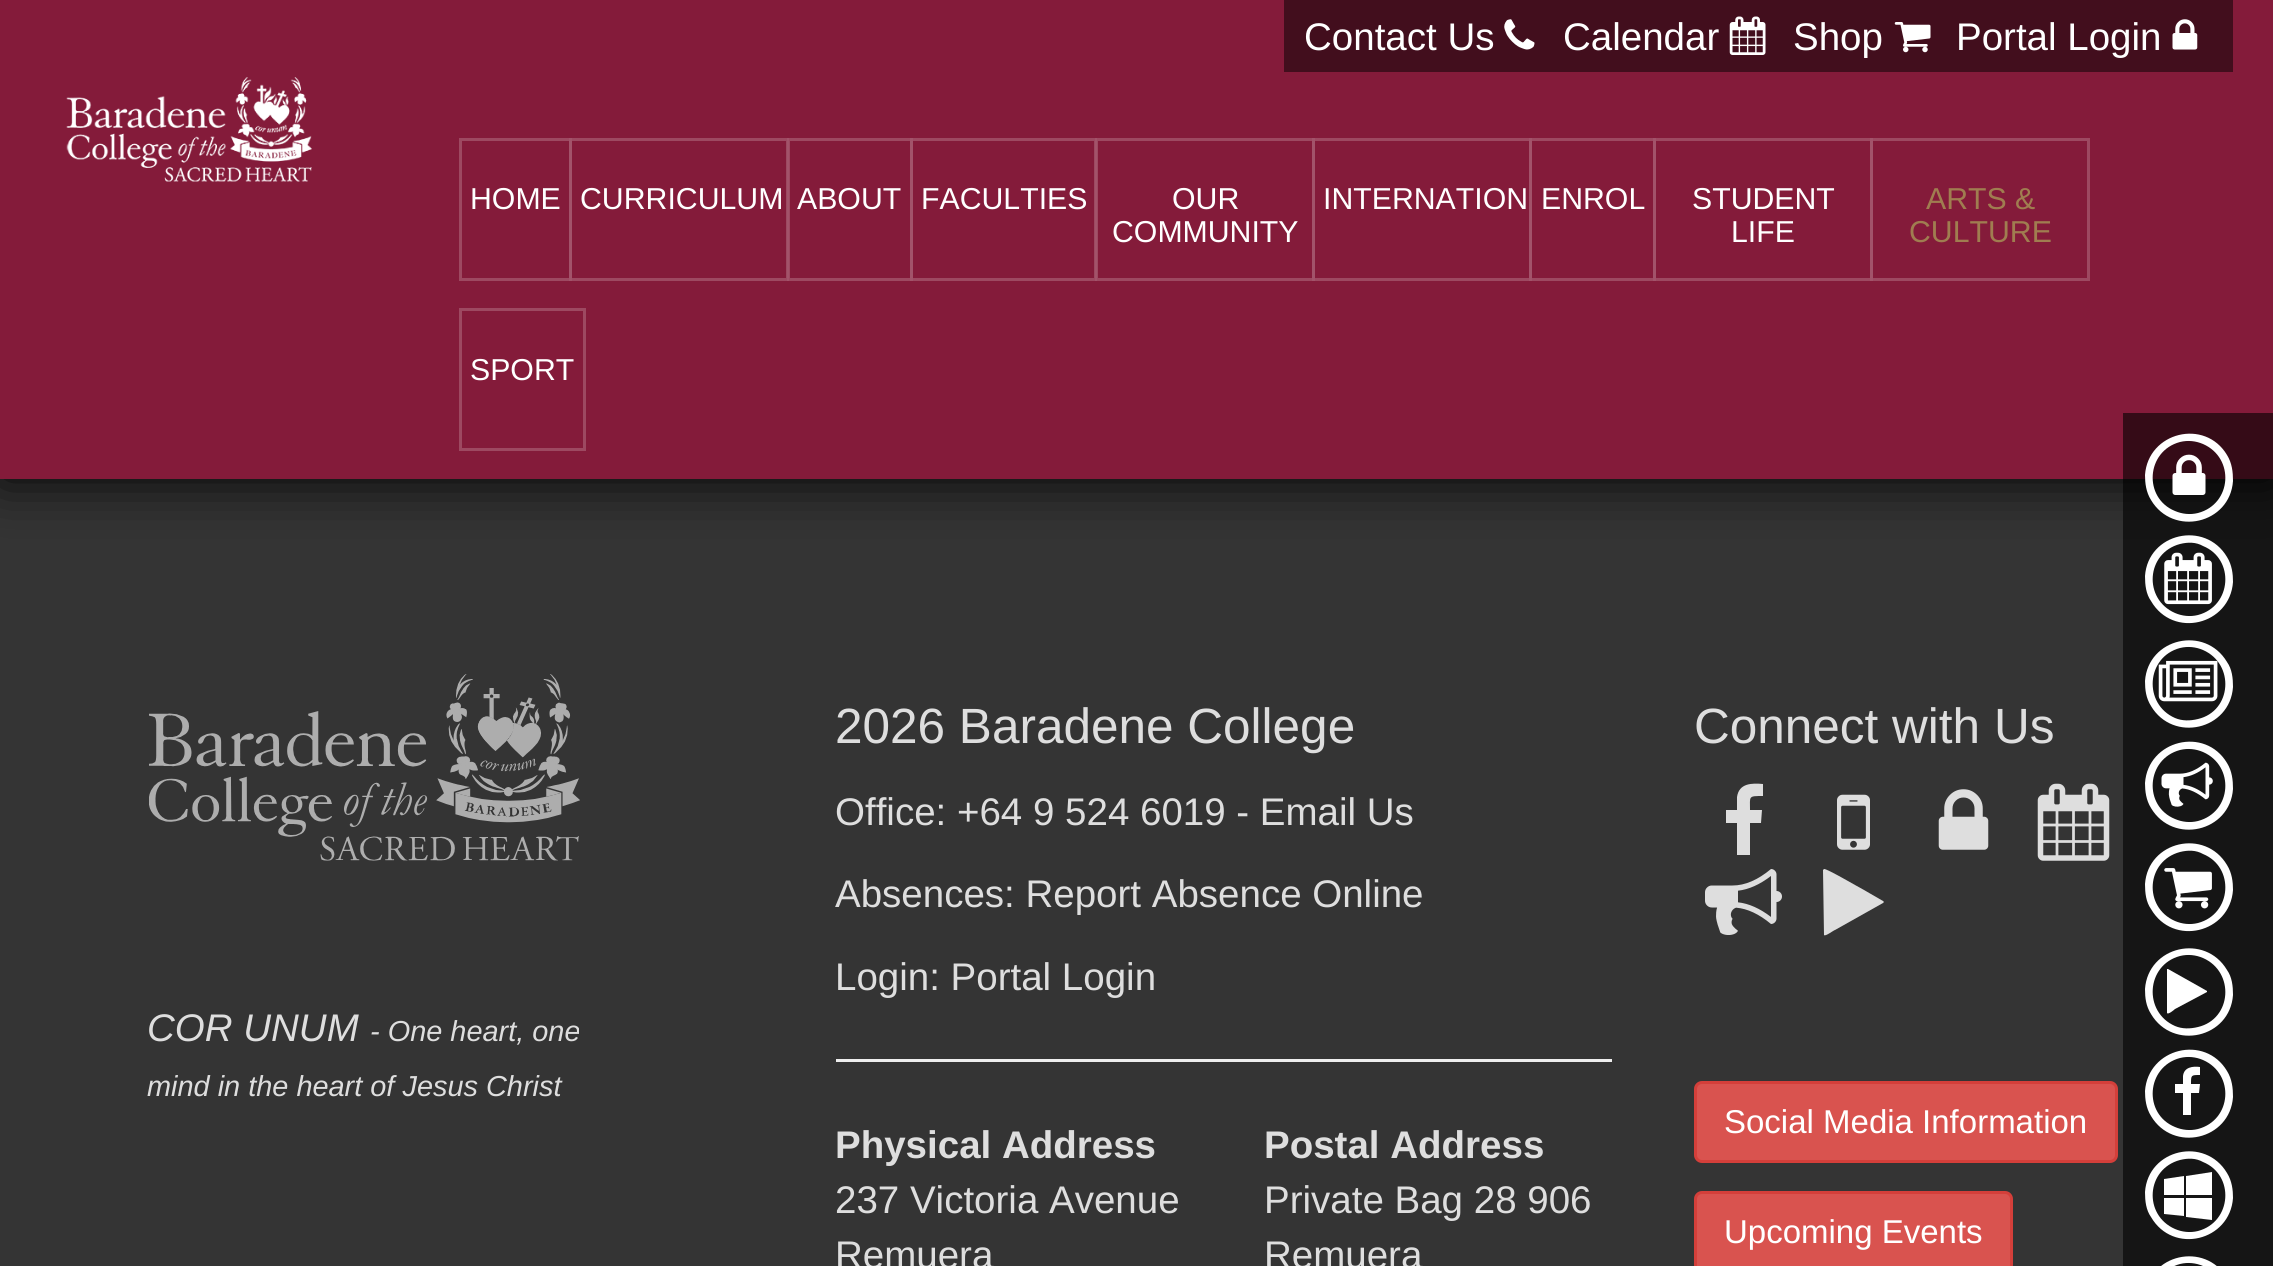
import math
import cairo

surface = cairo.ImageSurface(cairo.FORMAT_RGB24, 2273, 1266)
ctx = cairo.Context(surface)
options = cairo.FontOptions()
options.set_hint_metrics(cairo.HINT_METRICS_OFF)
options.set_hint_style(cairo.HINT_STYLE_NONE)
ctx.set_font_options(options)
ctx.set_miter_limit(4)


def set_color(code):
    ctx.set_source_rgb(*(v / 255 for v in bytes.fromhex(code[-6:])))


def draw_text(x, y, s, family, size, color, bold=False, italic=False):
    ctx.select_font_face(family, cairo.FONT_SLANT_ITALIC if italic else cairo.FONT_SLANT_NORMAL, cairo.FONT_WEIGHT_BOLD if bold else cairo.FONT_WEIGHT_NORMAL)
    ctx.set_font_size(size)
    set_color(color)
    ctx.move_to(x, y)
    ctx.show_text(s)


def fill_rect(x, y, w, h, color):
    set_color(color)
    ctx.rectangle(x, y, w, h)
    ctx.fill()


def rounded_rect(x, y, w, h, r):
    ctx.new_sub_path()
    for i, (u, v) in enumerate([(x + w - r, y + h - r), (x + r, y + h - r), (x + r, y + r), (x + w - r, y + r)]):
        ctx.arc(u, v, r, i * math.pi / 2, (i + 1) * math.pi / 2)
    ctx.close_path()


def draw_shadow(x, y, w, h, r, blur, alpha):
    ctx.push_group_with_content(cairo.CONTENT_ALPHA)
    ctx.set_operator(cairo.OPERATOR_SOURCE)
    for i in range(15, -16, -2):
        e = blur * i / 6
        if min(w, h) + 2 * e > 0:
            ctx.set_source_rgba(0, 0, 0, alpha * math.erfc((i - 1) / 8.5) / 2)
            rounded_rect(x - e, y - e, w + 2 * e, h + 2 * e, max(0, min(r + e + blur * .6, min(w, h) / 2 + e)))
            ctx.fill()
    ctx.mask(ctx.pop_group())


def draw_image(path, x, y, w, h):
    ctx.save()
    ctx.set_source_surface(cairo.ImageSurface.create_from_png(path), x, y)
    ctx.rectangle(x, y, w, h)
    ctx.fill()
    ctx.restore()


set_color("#343434")
ctx.paint()
set_color("#000000")
draw_shadow(0, 0, 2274, 479, 0, 27.5, 1)
fill_rect(0, 0, 2273, 479, "#841b3a")
fill_rect(1284, 0, 949, 72, "#420e1d")
draw_text(1304, 50, "Contact Us", "Liberation Sans", 38.5, "#ffffff")
draw_image("assets/img1.png", 1504, 19, 31, 31)
draw_text(1563, 50, "Calendar", "Liberation Sans", 38.5, "#ffffff")
draw_image("assets/img2.png", 1729, 16, 37, 39)
draw_text(1793, 50, "Shop", "Liberation Sans", 38.5, "#ffffff")
draw_image("assets/img3.png", 1894, 22, 37, 31)
draw_text(1956, 50, "Portal Login", "Liberation Sans", 38.5, "#ffffff")
draw_image("assets/img4.png", 2172, 19, 26, 31)
draw_image("assets/img5.png", 66, 77, 246, 105)
ctx.rectangle(460.5, 139.5, 110, 140)
set_color("#9d4961")
ctx.set_line_width(3)
ctx.stroke()
draw_text(470, 209, "HOME", "Liberation Sans", 30.25, "#ffffff")
ctx.set_source_rgba(0.518, 0.106, 0.227, 0.7)
ctx.rectangle(569, 138, 3, 143)
ctx.fill()
ctx.rectangle(570.5, 139.5, 217, 140)
ctx.set_source_rgba(1, 1, 1, 0.2)
ctx.stroke()
draw_text(580, 209, "CURRICULUM", "Liberation Sans", 30.25, "#ffffff")
ctx.set_source_rgba(0.518, 0.106, 0.227, 0.7)
ctx.rectangle(787, 138, 2, 143)
ctx.fill()
ctx.rectangle(788.5, 139.5, 123, 140)
ctx.set_source_rgba(1, 1, 1, 0.2)
ctx.stroke()
draw_text(797, 209, "ABOUT", "Liberation Sans", 30.25, "#ffffff")
ctx.set_source_rgba(0.518, 0.106, 0.227, 0.7)
ctx.rectangle(910, 138, 3, 143)
ctx.fill()
ctx.rectangle(911.5, 139.5, 184, 140)
ctx.set_source_rgba(1, 1, 1, 0.2)
ctx.stroke()
draw_text(921, 209, "FACULTIES", "Liberation Sans", 30.25, "#ffffff")
ctx.set_source_rgba(0.518, 0.106, 0.227, 0.7)
ctx.rectangle(1095, 138, 2, 143)
ctx.fill()
ctx.rectangle(1096.5, 139.5, 217, 140)
ctx.set_source_rgba(1, 1, 1, 0.2)
ctx.stroke()
draw_text(1172, 209, "OUR", "Liberation Sans", 30.25, "#ffffff")
draw_text(1112, 242, "COMMUNITY", "Liberation Sans", 30.25, "#ffffff")
ctx.set_source_rgba(0.518, 0.106, 0.227, 0.7)
ctx.rectangle(1312, 138, 3, 143)
ctx.fill()
ctx.rectangle(1313.5, 139.5, 217, 140)
ctx.set_source_rgba(1, 1, 1, 0.2)
ctx.stroke()
draw_text(1323, 209, "INTERNATION", "Liberation Sans", 30.25, "#ffffff")
ctx.set_source_rgba(0.518, 0.106, 0.227, 0.7)
ctx.rectangle(1529, 138, 3, 143)
ctx.fill()
ctx.rectangle(1530.5, 139.5, 124, 140)
ctx.set_source_rgba(1, 1, 1, 0.2)
ctx.stroke()
draw_text(1541, 209, "ENROL", "Liberation Sans", 30.25, "#ffffff")
ctx.set_source_rgba(0.518, 0.106, 0.227, 0.7)
ctx.rectangle(1653, 138, 3, 143)
ctx.fill()
ctx.rectangle(1654.5, 139.5, 217, 140)
ctx.set_source_rgba(1, 1, 1, 0.2)
ctx.stroke()
draw_text(1692, 209, "STUDENT", "Liberation Sans", 30.25, "#ffffff")
draw_text(1731, 242, "LIFE", "Liberation Sans", 30.25, "#ffffff")
ctx.set_source_rgba(0.518, 0.106, 0.227, 0.7)
ctx.rectangle(1870, 138, 3, 143)
ctx.fill()
ctx.rectangle(1871.5, 139.5, 217, 140)
ctx.set_source_rgba(1, 1, 1, 0.2)
ctx.stroke()
draw_text(1926, 209, "ARTS &", "Liberation Sans", 30.25, "#a07d50")
draw_text(1909, 242, "CULTURE", "Liberation Sans", 30.25, "#a07d50")
ctx.rectangle(460.5, 309.5, 124, 140)
set_color("#9d4961")
ctx.stroke()
draw_text(470, 380, "SPORT", "Liberation Sans", 30.25, "#ffffff")
draw_image("assets/img6.png", 149, 674, 431, 187)
draw_text(147, 1041, "COR UNUM", "Liberation Sans", 38.5, "#dedede", italic=True)
draw_text(370, 1041, "- One heart, one", "Liberation Sans", 28.9, "#dedede", italic=True)
draw_text(147, 1096, "mind in the heart of Jesus Christ", "Liberation Sans", 28.9, "#dedede", italic=True)
draw_text(835, 743, "2026 Baradene College", "Liberation Sans", 49.5, "#dedede")
draw_text(835, 825, "Office: +64 9 524 6019 - Email Us", "Liberation Sans", 38.5, "#dedede")
draw_text(835, 907, "Absences: Report Absence Online", "Liberation Sans", 38.5, "#dedede")
draw_text(835, 990, "Login: Portal Login", "Liberation Sans", 38.5, "#dedede")
fill_rect(836, 1059, 776, 3, "#eeeeee")
draw_text(835, 1158, "Physical Address", "Liberation Sans", 38.5, "#dedede", bold=True)
draw_text(835, 1213, "237 Victoria Avenue", "Liberation Sans", 38.5, "#dedede")
draw_text(835, 1268, "Remuera", "Liberation Sans", 38.5, "#dedede")
draw_text(1264, 1158, "Postal Address", "Liberation Sans", 38.5, "#dedede", bold=True)
draw_text(1264, 1213, "Private Bag 28 906", "Liberation Sans", 38.5, "#dedede")
draw_text(1264, 1268, "Remuera", "Liberation Sans", 38.5, "#dedede")
draw_text(1694, 743, "Connect with Us", "Liberation Sans", 49.5, "#dedede")
ctx.new_path()
ctx.move_to(1763, 784)
ctx.line_to(1763, 796)
ctx.curve_to(1748, 796, 1750, 796, 1750, 810)
ctx.line_to(1762, 810)
ctx.line_to(1761, 823)
ctx.line_to(1750, 823)
ctx.line_to(1750, 855)
ctx.line_to(1737, 855)
ctx.line_to(1737, 823)
ctx.line_to(1726, 823)
ctx.line_to(1726, 810)
ctx.line_to(1737, 810)
ctx.line_to(1737, 797)
ctx.curve_to(1739, 783, 1752, 783, 1763, 784)
ctx.close_path()
ctx.fill()
draw_image("assets/img7.png", 1837, 794, 33, 56)
draw_image("assets/img8.png", 1938, 789, 51, 61)
draw_image("assets/img9.png", 2037, 783, 73, 78)
draw_image("assets/img10.png", 1705, 869, 77, 66)
ctx.new_path()
ctx.move_to(1883, 903)
ctx.line_to(1835, 930)
ctx.curve_to(1834, 930, 1825, 937, 1824, 935)
ctx.line_to(1823, 870)
ctx.line_to(1824, 869)
ctx.curve_to(1826, 868, 1860, 888, 1864, 890)
ctx.line_to(1883, 901)
ctx.line_to(1884, 902)
ctx.close_path()
ctx.fill()
set_color("#d9534f")
rounded_rect(1695.5, 1082.5, 421, 79, 6.5)
ctx.fill_preserve()
set_color("#d43f3a")
ctx.stroke()
draw_text(1724, 1133, "Social Media Information", "Liberation Sans", 33, "#ffffff")
set_color("#d9534f")
rounded_rect(1695.5, 1192.5, 316, 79, 6.5)
ctx.fill_preserve()
set_color("#d43f3a")
ctx.stroke()
draw_text(1724, 1243, "Upcoming Events", "Liberation Sans", 33, "#ffffff")
ctx.set_source_rgba(0, 0, 0, 0.6)
ctx.rectangle(2123, 413, 150, 853)
ctx.fill()
set_color("#ffffff")
ctx.new_path()
ctx.move_to(2203, 444)
ctx.curve_to(2196, 441, 2188, 440, 2180, 442)
ctx.curve_to(2146, 451, 2143, 498, 2175, 511)
ctx.curve_to(2182, 514, 2190, 515, 2198, 513)
ctx.curve_to(2232, 504, 2235, 458, 2203, 444)
ctx.close_path()
ctx.move_to(2227, 455)
ctx.curve_to(2232, 463, 2233, 472, 2233, 481)
ctx.curve_to(2230, 524, 2173, 537, 2151, 500)
ctx.curve_to(2146, 492, 2145, 483, 2145, 475)
ctx.curve_to(2148, 432, 2205, 418, 2227, 455)
ctx.close_path()
ctx.fill()
draw_image("assets/img11.png", 2172, 454, 34, 41)
ctx.new_path()
ctx.move_to(2203, 546)
ctx.curve_to(2196, 542, 2188, 542, 2180, 544)
ctx.curve_to(2146, 553, 2143, 599, 2175, 613)
ctx.curve_to(2182, 616, 2190, 617, 2198, 615)
ctx.curve_to(2232, 606, 2235, 559, 2203, 546)
ctx.close_path()
ctx.move_to(2227, 557)
ctx.curve_to(2232, 565, 2233, 574, 2233, 582)
ctx.curve_to(2230, 625, 2173, 639, 2151, 601)
ctx.curve_to(2146, 594, 2145, 585, 2145, 576)
ctx.curve_to(2148, 533, 2205, 520, 2227, 557)
ctx.close_path()
ctx.fill()
draw_image("assets/img12.png", 2164, 552, 48, 53)
ctx.new_path()
ctx.move_to(2203, 650)
ctx.curve_to(2196, 647, 2188, 646, 2180, 648)
ctx.curve_to(2146, 657, 2143, 704, 2175, 718)
ctx.curve_to(2182, 721, 2190, 721, 2198, 719)
ctx.curve_to(2232, 711, 2235, 664, 2203, 650)
ctx.close_path()
ctx.move_to(2227, 662)
ctx.curve_to(2232, 669, 2233, 678, 2233, 687)
ctx.curve_to(2230, 730, 2173, 743, 2151, 706)
ctx.curve_to(2146, 698, 2145, 690, 2145, 681)
ctx.curve_to(2148, 638, 2205, 625, 2227, 662)
ctx.close_path()
ctx.fill()
draw_image("assets/img13.png", 2158, 660, 60, 42)
ctx.new_path()
ctx.move_to(2203, 752)
ctx.curve_to(2196, 749, 2188, 748, 2180, 750)
ctx.curve_to(2146, 759, 2143, 806, 2175, 819)
ctx.curve_to(2182, 822, 2190, 823, 2198, 821)
ctx.curve_to(2232, 812, 2235, 766, 2203, 752)
ctx.close_path()
ctx.move_to(2227, 763)
ctx.curve_to(2232, 771, 2233, 780, 2233, 789)
ctx.curve_to(2230, 832, 2173, 845, 2151, 808)
ctx.curve_to(2146, 800, 2145, 791, 2145, 783)
ctx.curve_to(2148, 740, 2205, 726, 2227, 763)
ctx.close_path()
ctx.fill()
draw_image("assets/img14.png", 2161, 762, 52, 45)
ctx.new_path()
ctx.move_to(2203, 854)
ctx.curve_to(2196, 850, 2188, 850, 2180, 852)
ctx.curve_to(2146, 861, 2143, 907, 2175, 921)
ctx.curve_to(2182, 924, 2190, 925, 2198, 923)
ctx.curve_to(2232, 914, 2235, 867, 2203, 854)
ctx.close_path()
ctx.move_to(2227, 865)
ctx.curve_to(2232, 873, 2233, 882, 2233, 890)
ctx.curve_to(2230, 933, 2173, 947, 2151, 909)
ctx.curve_to(2146, 902, 2145, 893, 2145, 884)
ctx.curve_to(2148, 841, 2205, 828, 2227, 865)
ctx.close_path()
ctx.fill()
draw_image("assets/img15.png", 2164, 868, 48, 41)
ctx.new_path()
ctx.move_to(2203, 958)
ctx.curve_to(2196, 955, 2188, 954, 2180, 956)
ctx.curve_to(2146, 965, 2143, 1012, 2175, 1026)
ctx.curve_to(2182, 1029, 2190, 1029, 2198, 1027)
ctx.curve_to(2232, 1019, 2235, 972, 2203, 958)
ctx.close_path()
ctx.move_to(2227, 970)
ctx.curve_to(2232, 977, 2233, 986, 2233, 995)
ctx.curve_to(2230, 1038, 2173, 1051, 2151, 1014)
ctx.curve_to(2146, 1006, 2145, 998, 2145, 989)
ctx.curve_to(2148, 946, 2205, 933, 2227, 970)
ctx.close_path()
ctx.fill()
ctx.new_path()
ctx.move_to(2207, 992)
ctx.line_to(2175, 1009)
ctx.curve_to(2174, 1010, 2168, 1015, 2167, 1013)
ctx.line_to(2167, 969)
ctx.line_to(2168, 969)
ctx.line_to(2200, 987)
ctx.line_to(2207, 991)
ctx.close_path()
ctx.fill()
ctx.new_path()
ctx.move_to(2203, 1060)
ctx.curve_to(2196, 1057, 2188, 1056, 2180, 1058)
ctx.curve_to(2146, 1067, 2143, 1114, 2175, 1127)
ctx.curve_to(2182, 1130, 2190, 1131, 2198, 1129)
ctx.curve_to(2232, 1120, 2235, 1074, 2203, 1060)
ctx.close_path()
ctx.move_to(2227, 1071)
ctx.curve_to(2232, 1079, 2233, 1088, 2233, 1097)
ctx.curve_to(2230, 1140, 2173, 1153, 2151, 1116)
ctx.curve_to(2146, 1108, 2145, 1099, 2145, 1091)
ctx.curve_to(2148, 1048, 2205, 1034, 2227, 1071)
ctx.close_path()
ctx.fill()
ctx.new_path()
ctx.move_to(2200, 1067)
ctx.line_to(2200, 1075)
ctx.curve_to(2191, 1075, 2191, 1075, 2191, 1084)
ctx.line_to(2200, 1084)
ctx.line_to(2199, 1093)
ctx.line_to(2191, 1093)
ctx.line_to(2191, 1115)
ctx.line_to(2183, 1115)
ctx.line_to(2183, 1093)
ctx.line_to(2175, 1093)
ctx.line_to(2175, 1084)
ctx.line_to(2183, 1084)
ctx.line_to(2183, 1076)
ctx.curve_to(2184, 1067, 2193, 1066, 2200, 1067)
ctx.close_path()
ctx.fill()
ctx.new_path()
ctx.move_to(2203, 1162)
ctx.curve_to(2196, 1158, 2188, 1158, 2180, 1160)
ctx.curve_to(2146, 1169, 2143, 1215, 2175, 1229)
ctx.curve_to(2182, 1232, 2190, 1233, 2198, 1231)
ctx.curve_to(2232, 1222, 2235, 1175, 2203, 1162)
ctx.close_path()
ctx.move_to(2227, 1173)
ctx.curve_to(2232, 1181, 2233, 1190, 2233, 1198)
ctx.curve_to(2230, 1241, 2173, 1255, 2151, 1217)
ctx.curve_to(2146, 1210, 2145, 1201, 2145, 1192)
ctx.curve_to(2148, 1149, 2205, 1136, 2227, 1173)
ctx.close_path()
ctx.fill()
ctx.new_path()
ctx.move_to(2184, 1198)
ctx.line_to(2184, 1216)
ctx.line_to(2164, 1214)
ctx.line_to(2164, 1198)
ctx.close_path()
ctx.move_to(2184, 1176)
ctx.line_to(2184, 1195)
ctx.line_to(2164, 1195)
ctx.line_to(2164, 1179)
ctx.close_path()
ctx.move_to(2212, 1198)
ctx.line_to(2212, 1220)
ctx.line_to(2186, 1217)
ctx.line_to(2186, 1198)
ctx.close_path()
ctx.move_to(2212, 1172)
ctx.line_to(2212, 1195)
ctx.line_to(2186, 1195)
ctx.line_to(2186, 1176)
ctx.close_path()
ctx.fill()
ctx.new_path()
ctx.move_to(2203, 1266)
ctx.curve_to(2196, 1263, 2188, 1262, 2180, 1264)
ctx.curve_to(2146, 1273, 2143, 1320, 2175, 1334)
ctx.curve_to(2182, 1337, 2190, 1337, 2198, 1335)
ctx.curve_to(2232, 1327, 2235, 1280, 2203, 1266)
ctx.close_path()
ctx.move_to(2227, 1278)
ctx.curve_to(2232, 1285, 2233, 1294, 2233, 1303)
ctx.curve_to(2230, 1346, 2173, 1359, 2151, 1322)
ctx.curve_to(2146, 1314, 2145, 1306, 2145, 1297)
ctx.curve_to(2148, 1254, 2205, 1241, 2227, 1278)
ctx.close_path()
ctx.fill()
surface.write_to_png("output.png")
